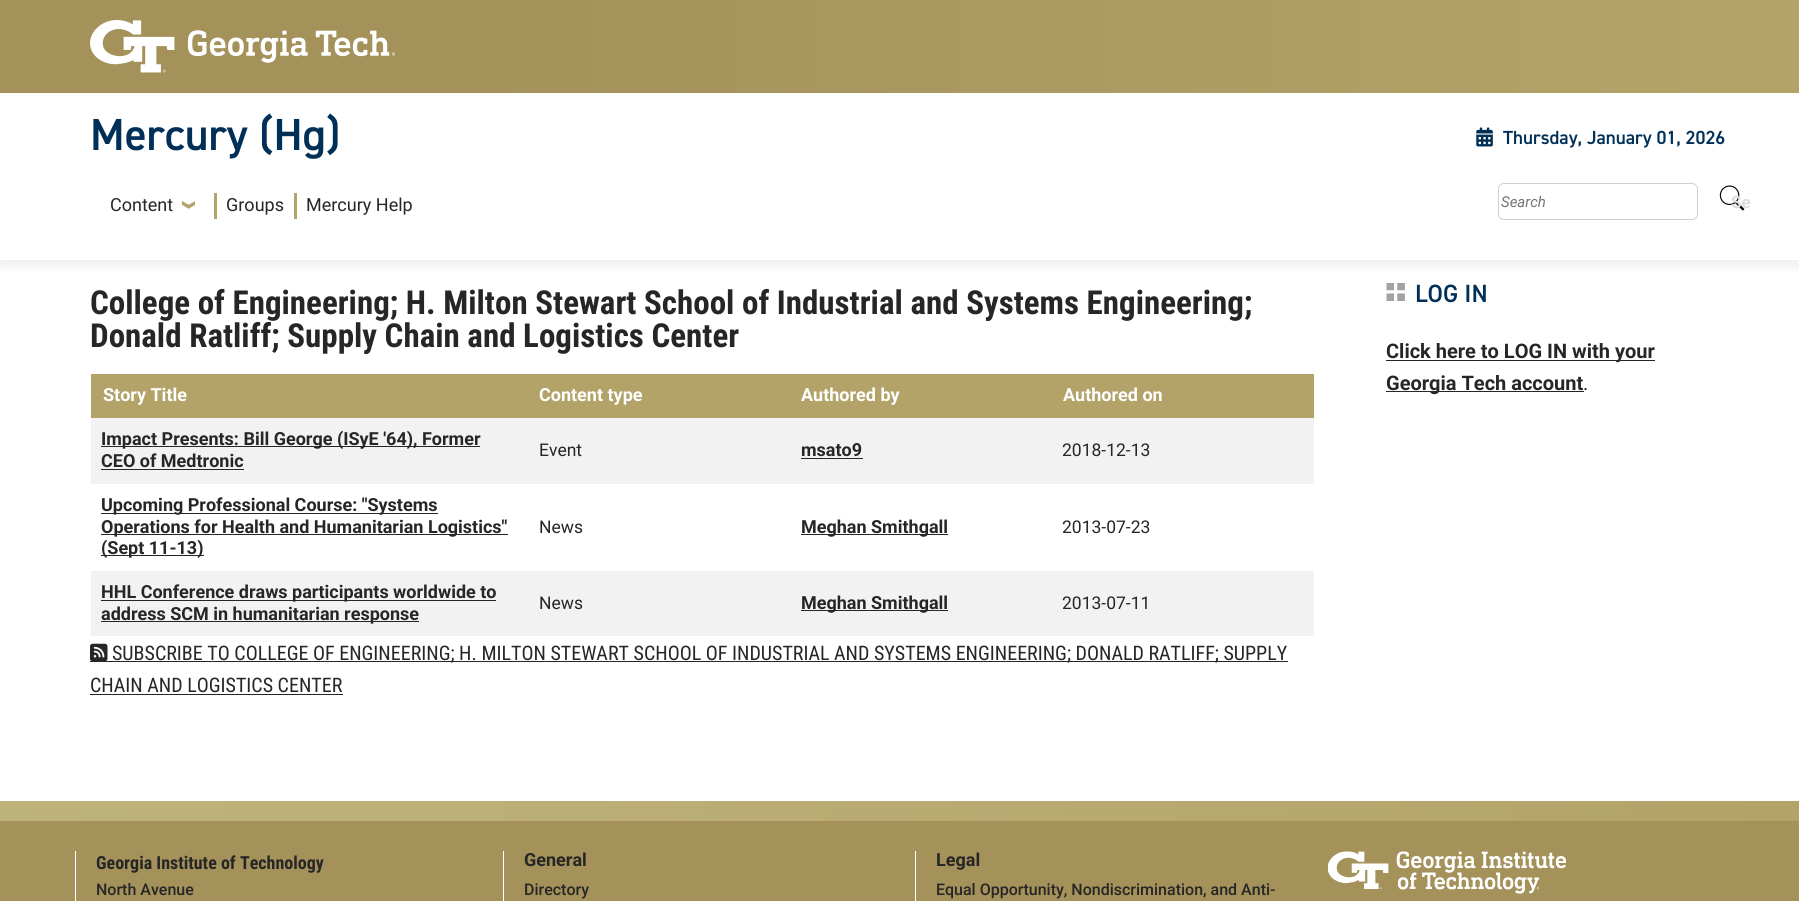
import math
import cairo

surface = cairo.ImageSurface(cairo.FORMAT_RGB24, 1799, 901)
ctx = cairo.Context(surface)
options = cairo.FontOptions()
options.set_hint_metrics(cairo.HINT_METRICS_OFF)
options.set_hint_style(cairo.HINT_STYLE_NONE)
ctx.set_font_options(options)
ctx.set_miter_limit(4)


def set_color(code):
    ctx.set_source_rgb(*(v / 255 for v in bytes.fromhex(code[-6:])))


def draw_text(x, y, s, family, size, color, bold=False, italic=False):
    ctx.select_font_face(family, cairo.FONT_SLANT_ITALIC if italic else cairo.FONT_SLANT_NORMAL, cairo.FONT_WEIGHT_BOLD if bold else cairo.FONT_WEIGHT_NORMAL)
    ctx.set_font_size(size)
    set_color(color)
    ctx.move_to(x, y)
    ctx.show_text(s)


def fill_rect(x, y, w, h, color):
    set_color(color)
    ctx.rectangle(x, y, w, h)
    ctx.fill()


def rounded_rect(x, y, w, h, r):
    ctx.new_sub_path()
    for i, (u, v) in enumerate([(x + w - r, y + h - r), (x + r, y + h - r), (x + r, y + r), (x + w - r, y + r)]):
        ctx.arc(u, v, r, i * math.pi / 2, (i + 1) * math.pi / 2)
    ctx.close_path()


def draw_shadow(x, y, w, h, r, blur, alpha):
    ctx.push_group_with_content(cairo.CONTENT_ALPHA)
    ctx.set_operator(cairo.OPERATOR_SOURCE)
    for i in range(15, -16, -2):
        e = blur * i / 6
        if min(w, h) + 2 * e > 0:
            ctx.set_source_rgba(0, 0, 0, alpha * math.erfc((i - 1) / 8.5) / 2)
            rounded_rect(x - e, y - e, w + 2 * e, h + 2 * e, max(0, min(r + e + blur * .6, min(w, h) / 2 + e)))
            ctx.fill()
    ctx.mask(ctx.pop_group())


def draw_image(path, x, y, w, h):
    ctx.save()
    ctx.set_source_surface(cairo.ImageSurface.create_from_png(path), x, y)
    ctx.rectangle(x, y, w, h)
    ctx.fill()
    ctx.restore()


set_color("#ffffff")
ctx.paint()
ctx.save()
ctx.rectangle(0, 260, 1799, 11)
ctx.clip()
set_color("#000000")
draw_shadow(0, 3, 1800, 260, 0, 10, 0.1)
ctx.restore()
fill_rect(0, 0, 488, 93, "#a4925a")
fill_rect(1725, 0, 74, 93, "#b3a369")
draw_image("assets/img1.png", 90, 20, 305, 53)
gradient = cairo.LinearGradient(488, 46, 1725, 46)
gradient.add_color_stop_rgba(0, 0.643, 0.573, 0.353, 1)
gradient.add_color_stop_rgba(1, 0.702, 0.639, 0.412, 1)
ctx.set_source(gradient)
ctx.rectangle(488, 0, 1237, 93)
ctx.fill()
draw_text(90, 150, "Mercury (Hg)", "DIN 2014 SemiBold", 45, "#003057")
draw_image("assets/img2.png", 1476, 127, 17, 20)
draw_text(1503, 144, "Thursday, January 01, 2026", "DIN 2014 SemiBold", 19, "#003057")
fill_rect(214, 193, 3, 26, "#b3a369")
draw_text(110, 211, "Content", "Roboto", 18, "#262626")
draw_image("assets/img3.png", 181, 201, 14, 8)
fill_rect(294, 193, 3, 26, "#b3a369")
draw_text(226, 211, "Groups", "Roboto", 18, "#262626")
draw_text(306, 211, "Mercury Help", "Roboto", 18, "#262626")
rounded_rect(1498.5, 183.5, 199, 36, 5.5)
set_color("#d0d0d0")
ctx.set_line_width(1)
ctx.stroke()
draw_text(1501, 207, "Search", "Roboto", 15, "#757575", italic=True)
draw_image("assets/img4.png", 1719, 185, 26, 26)
draw_text(1731, 208, "Se", "Roboto", 17, "#dddddd", bold=True)
draw_text(90, 314, "College of Engineering; H. Milton Stewart School of Industrial and Systems Engineering;", "Roboto Condensed", 33, "#262626", bold=True)
draw_text(90, 347, "Donald Ratliff; Supply Chain and Logistics Center", "Roboto Condensed", 33, "#262626", bold=True)
fill_rect(91, 374, 1223, 44, "#b3a369")
draw_text(103, 401, "Story Title", "Roboto", 18, "#ffffff", bold=True)
draw_text(539, 401, "Content type", "Roboto", 18, "#ffffff", bold=True)
draw_text(801, 401, "Authored by", "Roboto", 18, "#ffffff", bold=True)
draw_text(1063, 401, "Authored on", "Roboto", 18, "#ffffff", bold=True)
fill_rect(91, 418, 1223, 66, "#f2f2f2")
fill_rect(101, 446, 379, 1, "#262626")
draw_text(101, 445, "Impact Presents: Bill George (ISyE '64), Former", "Roboto", 18, "#262626", bold=True)
draw_text(101, 467, "CEO of Medtronic", "Roboto", 18, "#262626", bold=True)
fill_rect(101, 469, 143, 1, "#262626")
draw_text(539, 456, "Event", "Roboto", 17.5, "#262626")
draw_text(801, 456, "msato9", "Roboto", 18, "#262626", bold=True)
fill_rect(801, 458, 62, 1, "#262626")
draw_text(1062, 456, "2018-12-13", "Roboto", 17.5, "#262626")
fill_rect(101, 513, 337, 1, "#262626")
draw_text(101, 511, "Upcoming Professional Course: \"Systems", "Roboto", 18, "#262626", bold=True)
fill_rect(101, 534, 407, 1, "#262626")
draw_text(101, 533, "Operations for Health and Humanitarian Logistics\"", "Roboto", 18, "#262626", bold=True)
fill_rect(101, 555, 103, 1, "#262626")
draw_text(101, 554, "(Sept 11-13)", "Roboto", 18, "#262626", bold=True)
draw_text(539, 533, "News", "Roboto", 17.5, "#262626")
fill_rect(801, 534, 147, 1, "#262626")
draw_text(801, 533, "Meghan Smithgall", "Roboto", 18, "#262626", bold=True)
draw_text(1062, 533, "2013-07-23", "Roboto", 17.5, "#262626")
fill_rect(91, 571, 1223, 65, "#f2f2f2")
fill_rect(101, 600, 395, 1, "#262626")
draw_text(101, 598, "HHL Conference draws participants worldwide to", "Roboto", 18, "#262626", bold=True)
fill_rect(101, 621, 318, 1, "#262626")
draw_text(101, 620, "address SCM in humanitarian response", "Roboto", 18, "#262626", bold=True)
draw_text(539, 609, "News", "Roboto", 17.5, "#262626")
fill_rect(801, 610, 147, 1, "#262626")
draw_text(801, 609, "Meghan Smithgall", "Roboto", 18, "#262626", bold=True)
draw_text(1062, 609, "2013-07-11", "Roboto", 17.5, "#262626")
draw_image("assets/img5.png", 90, 643, 18, 18)
fill_rect(90, 661, 1198, 1, "#262626")
draw_text(112, 660, "SUBSCRIBE TO COLLEGE OF ENGINEERING; H. MILTON STEWART SCHOOL OF INDUSTRIAL AND SYSTEMS ENGINEERING; DONALD RATLIFF; SUPPLY", "Roboto Condensed", 20, "#262626")
draw_text(90, 692, "CHAIN AND LOGISTICS CENTER", "Roboto Condensed", 20, "#262626")
fill_rect(90, 694, 253, 1, "#262626")
draw_image("assets/img6.png", 1386, 283, 19, 18)
draw_text(1415, 302, "LOG IN", "DIN 2014 SemiBold", 25, "#003057")
fill_rect(1386, 360, 269, 1, "#262626")
draw_text(1386, 358, "Click here to LOG IN with your", "Roboto", 20, "#262626", bold=True)
fill_rect(1386, 391, 198, 1, "#262626")
draw_text(1386, 390, "Georgia Tech account", "Roboto", 20, "#262626", bold=True)
draw_text(1583, 390, ".", "Roboto", 20, "#262626")
gradient = cairo.LinearGradient(0, 811, 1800, 811)
gradient.add_color_stop_rgba(0, 0.749, 0.702, 0.486, 1)
gradient.add_color_stop_rgba(1, 0.702, 0.639, 0.412, 1)
ctx.set_source(gradient)
ctx.rectangle(0, 801, 1799, 20)
ctx.fill()
fill_rect(0, 821, 1799, 80, "#a4925a")
fill_rect(75, 851, 1, 50, "#ffffff")
draw_text(96, 869, "Georgia Institute of Technology", "Roboto Condensed", 18, "#262626", bold=True)
draw_text(96, 895, "North Avenue", "Roboto Medium", 16, "#262626")
fill_rect(503, 851, 1, 50, "#ffffff")
draw_text(524, 866, "General", "Roboto", 18, "#262626", bold=True)
draw_text(524, 895, "Directory", "Roboto Medium", 16, "#262626")
fill_rect(915, 851, 1, 50, "#ffffff")
draw_text(936, 866, "Legal", "Roboto", 18, "#262626", bold=True)
draw_text(936, 895, "Equal Opportunity, Nondiscrimination, and Anti-", "Roboto Medium", 16, "#262626")
draw_image("assets/img7.png", 1328, 851, 238, 43)
surface.write_to_png("output.png")
